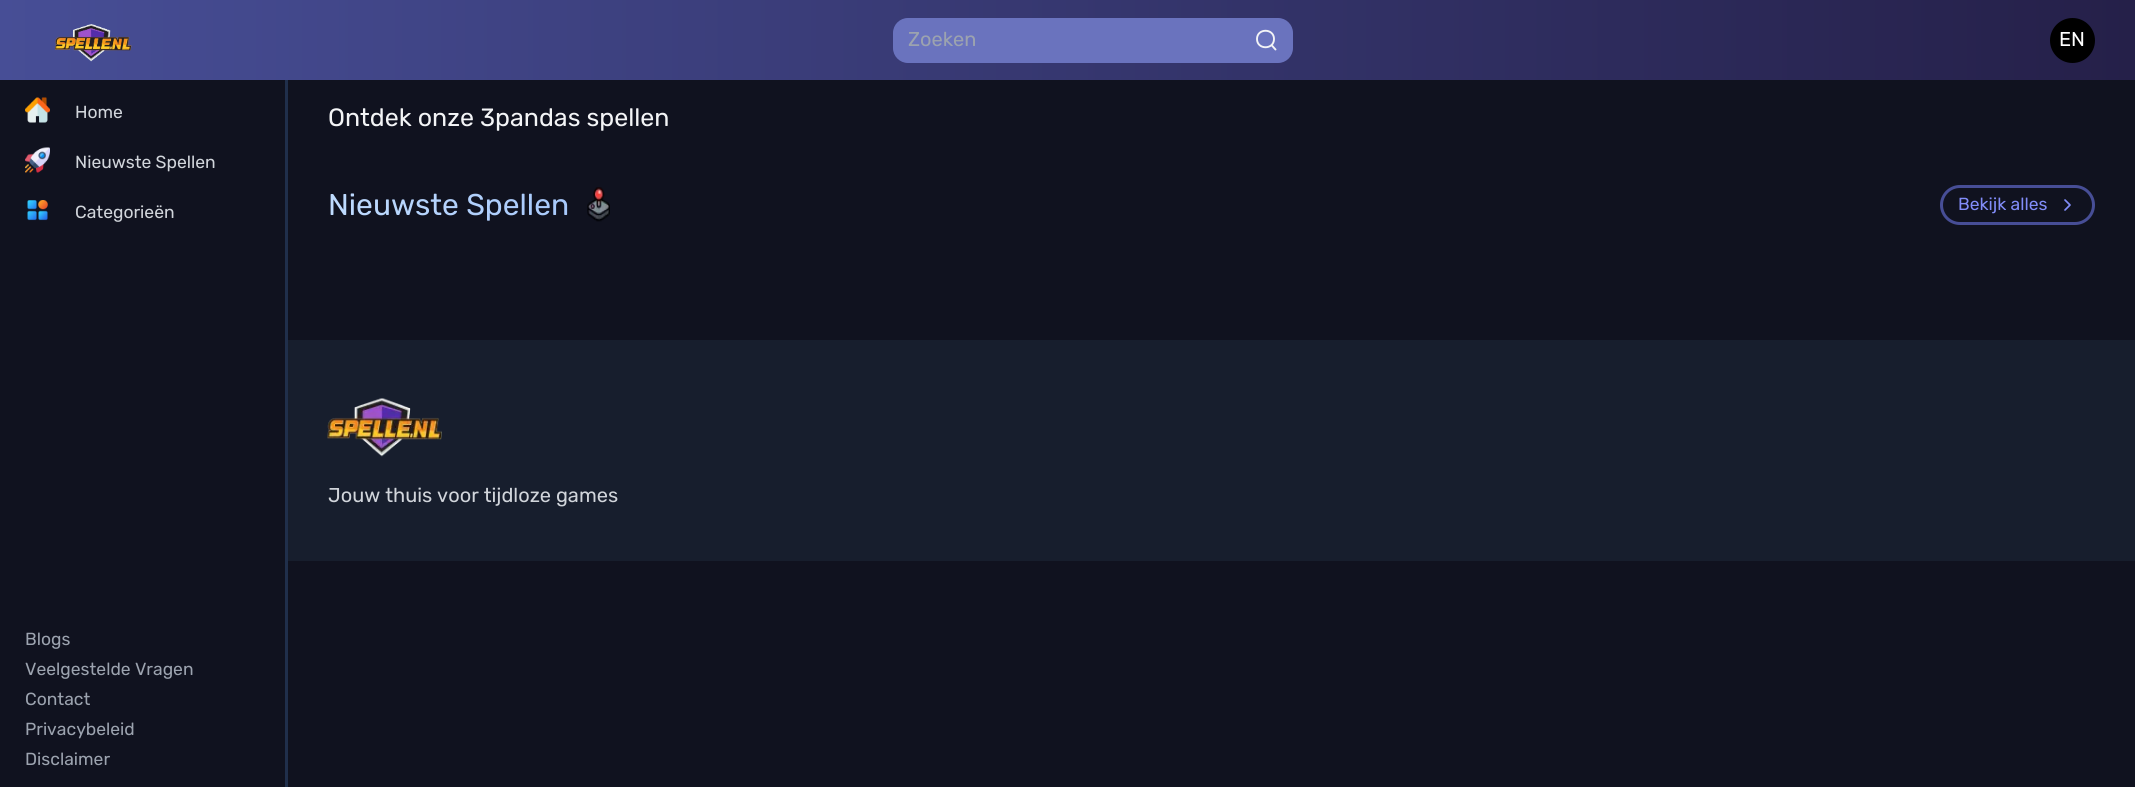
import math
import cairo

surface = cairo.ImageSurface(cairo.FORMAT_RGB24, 2135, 787)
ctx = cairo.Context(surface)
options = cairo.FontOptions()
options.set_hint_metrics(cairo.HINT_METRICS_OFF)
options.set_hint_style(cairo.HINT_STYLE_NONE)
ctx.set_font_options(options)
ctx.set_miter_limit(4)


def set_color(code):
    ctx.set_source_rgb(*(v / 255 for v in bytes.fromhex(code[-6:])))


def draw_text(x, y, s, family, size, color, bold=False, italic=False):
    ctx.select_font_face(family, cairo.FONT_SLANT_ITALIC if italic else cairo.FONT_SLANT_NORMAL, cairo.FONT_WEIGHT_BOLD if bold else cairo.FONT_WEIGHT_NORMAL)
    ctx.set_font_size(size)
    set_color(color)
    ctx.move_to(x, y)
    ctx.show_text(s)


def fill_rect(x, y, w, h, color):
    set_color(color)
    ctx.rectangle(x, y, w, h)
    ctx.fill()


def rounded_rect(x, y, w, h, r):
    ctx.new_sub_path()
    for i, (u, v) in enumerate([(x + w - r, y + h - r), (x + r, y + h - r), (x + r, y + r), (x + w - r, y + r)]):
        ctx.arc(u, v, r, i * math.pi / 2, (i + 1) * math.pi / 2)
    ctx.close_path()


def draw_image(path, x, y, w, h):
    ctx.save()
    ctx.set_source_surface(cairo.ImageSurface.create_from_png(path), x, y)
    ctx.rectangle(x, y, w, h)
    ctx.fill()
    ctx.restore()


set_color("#10121f")
ctx.paint()
gradient = cairo.LinearGradient(0, 40, 2135, 40)
gradient.add_color_stop_rgba(0, 0.278, 0.306, 0.588, 1)
gradient.add_color_stop_rgba(1, 0.145, 0.125, 0.286, 1)
ctx.set_source(gradient)
ctx.rectangle(0, 0, 2135, 80)
ctx.fill()
draw_image("assets/img1.png", 55, 24, 77, 38)
set_color("#6a73be")
rounded_rect(893, 18, 400, 45, 15)
ctx.fill()
draw_text(908, 46, "Zoeken", "Rubik", 20, "#9ca3af")
ctx.new_path()
ctx.move_to(1271.5, 45)
ctx.line_to(1275.5, 49.5)
ctx.move_to(1274, 39)
ctx.curve_to(1274, 28, 1257, 28, 1257, 39)
ctx.curve_to(1257, 50, 1274, 50, 1274, 39)
ctx.close_path()
set_color("#f3f4f6")
ctx.set_line_width(1.9)
ctx.set_line_cap(cairo.LINE_CAP_ROUND)
ctx.set_line_join(cairo.LINE_JOIN_ROUND)
ctx.stroke()
set_color("#000000")
ctx.arc(2072.5, 40.5, 22.5, 0, 2 * math.pi)
ctx.fill()
draw_text(2059, 46, "EN", "Rubik", 20, "#ffffff")
fill_rect(285, 80, 3, 707, "#202f4b")
draw_image("assets/img2.png", 25, 97, 25, 26)
draw_text(75, 118, "Home", "Rubik", 17.5, "#d1d5db")
draw_image("assets/img3.png", 25, 147, 25, 26)
draw_text(75, 168, "Nieuwste Spellen", "Rubik", 17.5, "#d1d5db")
draw_image("assets/img4.png", 27, 200, 21, 21)
draw_text(75, 218, "Categorieën", "Rubik", 17.5, "#d1d5db")
draw_text(25, 645, "Blogs", "Rubik", 17.5, "#9ca3af")
draw_text(25, 675, "Veelgestelde Vragen", "Rubik", 17.5, "#9ca3af")
draw_text(25, 705, "Contact", "Rubik", 17.5, "#9ca3af")
draw_text(25, 735, "Privacybeleid", "Rubik", 17.5, "#9ca3af")
draw_text(25, 765, "Disclaimer", "Rubik", 17.5, "#9ca3af")
draw_text(328, 126, "Ontdek onze 3pandas spellen", "Rubik", 25, "#f3f4f6")
ctx.set_font_size(30)
gradient = cairo.LinearGradient(328, 205, 1926, 205)
gradient.add_color_stop_rgba(0, 0.749, 0.859, 0.996, 1)
gradient.add_color_stop_rgba(1, 0.145, 0.388, 0.922, 1)
ctx.set_source(gradient)
ctx.move_to(328, 215)
ctx.show_text("Nieuwste Spellen")
draw_image("assets/img5.png", 587, 187, 23, 35)
rounded_rect(1941.5, 186.5, 152, 37, 18.5)
set_color("#474e96")
ctx.set_line_width(3)
ctx.set_line_cap(cairo.LINE_CAP_BUTT)
ctx.set_line_join(cairo.LINE_JOIN_MITER)
ctx.stroke()
draw_text(1958, 210, "Bekijk alles", "Rubik", 17.5, "#818cf8")
ctx.new_path()
ctx.move_to(2065, 210)
ctx.line_to(2070, 205)
ctx.line_to(2065, 200)
ctx.set_line_width(1.7)
ctx.set_line_cap(cairo.LINE_CAP_ROUND)
ctx.set_line_join(cairo.LINE_JOIN_ROUND)
ctx.stroke()
fill_rect(288, 340, 1847, 221, "#171e2d")
draw_image("assets/img6.png", 327, 398, 115, 59)
draw_text(328, 502, "Jouw thuis voor tijdloze games", "Rubik", 20, "#d1d5db")
surface.write_to_png("output.png")
